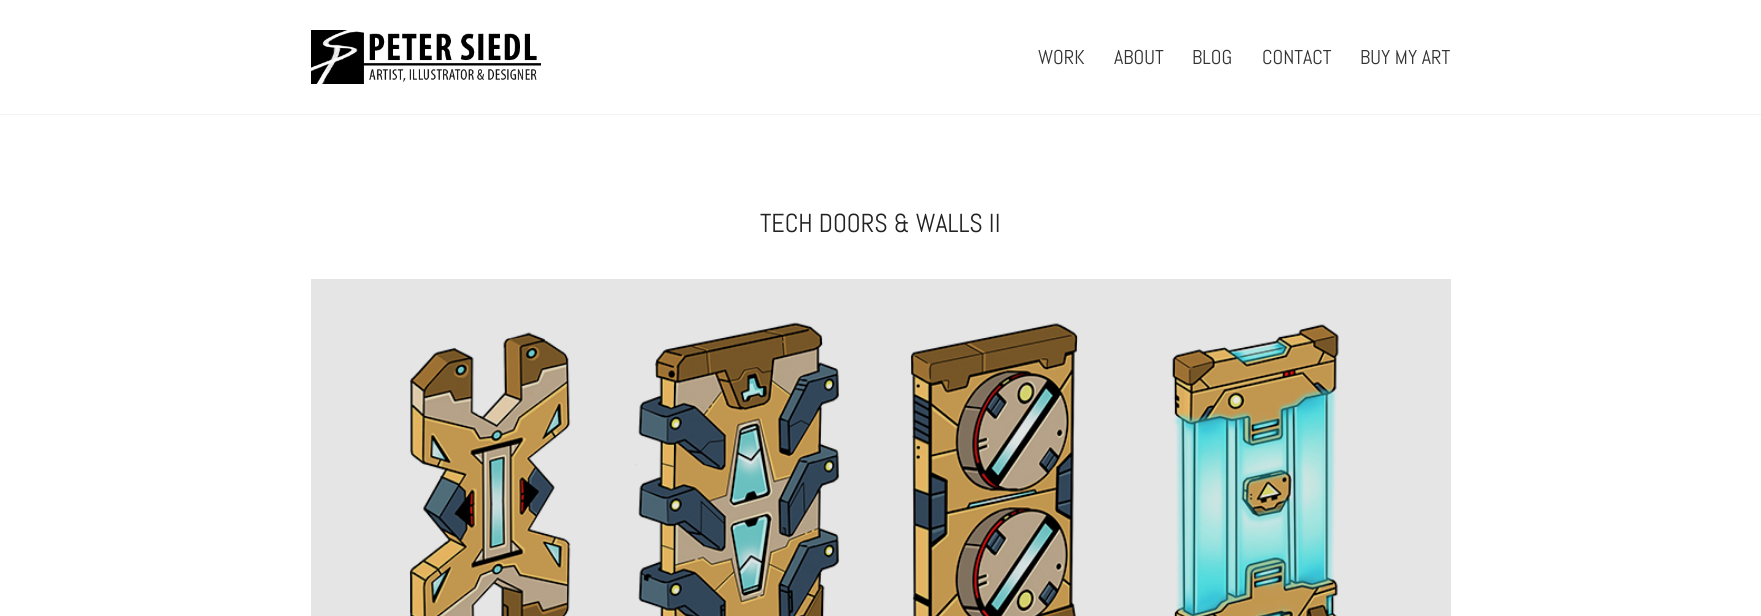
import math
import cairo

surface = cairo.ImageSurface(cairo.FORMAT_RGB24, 1761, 616)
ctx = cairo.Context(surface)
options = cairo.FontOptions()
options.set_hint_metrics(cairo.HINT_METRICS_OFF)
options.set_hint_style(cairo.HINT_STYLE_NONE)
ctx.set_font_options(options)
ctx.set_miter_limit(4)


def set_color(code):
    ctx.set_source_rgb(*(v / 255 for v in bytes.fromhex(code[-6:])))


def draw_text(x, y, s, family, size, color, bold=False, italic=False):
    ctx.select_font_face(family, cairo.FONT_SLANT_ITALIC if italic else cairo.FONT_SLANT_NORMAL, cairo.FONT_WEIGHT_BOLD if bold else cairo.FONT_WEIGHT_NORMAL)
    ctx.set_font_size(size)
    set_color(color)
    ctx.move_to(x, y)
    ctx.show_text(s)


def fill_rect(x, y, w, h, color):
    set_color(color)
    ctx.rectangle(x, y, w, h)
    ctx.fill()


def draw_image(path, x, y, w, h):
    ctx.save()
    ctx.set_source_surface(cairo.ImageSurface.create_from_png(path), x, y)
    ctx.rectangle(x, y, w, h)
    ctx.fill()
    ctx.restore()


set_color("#ffffff")
ctx.paint()
fill_rect(0, 114, 1761, 1, "#f3f3f3")
draw_image("assets/img1.png", 311, 30, 230, 54)
draw_text(1038, 64, "WORK", "Abel", 20, "#333333")
draw_text(1114, 64, "ABOUT", "Abel", 20, "#333333")
draw_text(1192, 64, "BLOG", "Abel", 20, "#333333")
draw_text(1262, 64, "CONTACT", "Abel", 20, "#333333")
draw_text(1360, 64, "BUY MY ART", "Abel", 20, "#333333")
draw_text(760, 232, "TECH DOORS & WALLS II", "Abel", 26, "#222222")
draw_image("assets/img2.png", 311, 279, 1140, 337)
surface.write_to_png("output.png")
